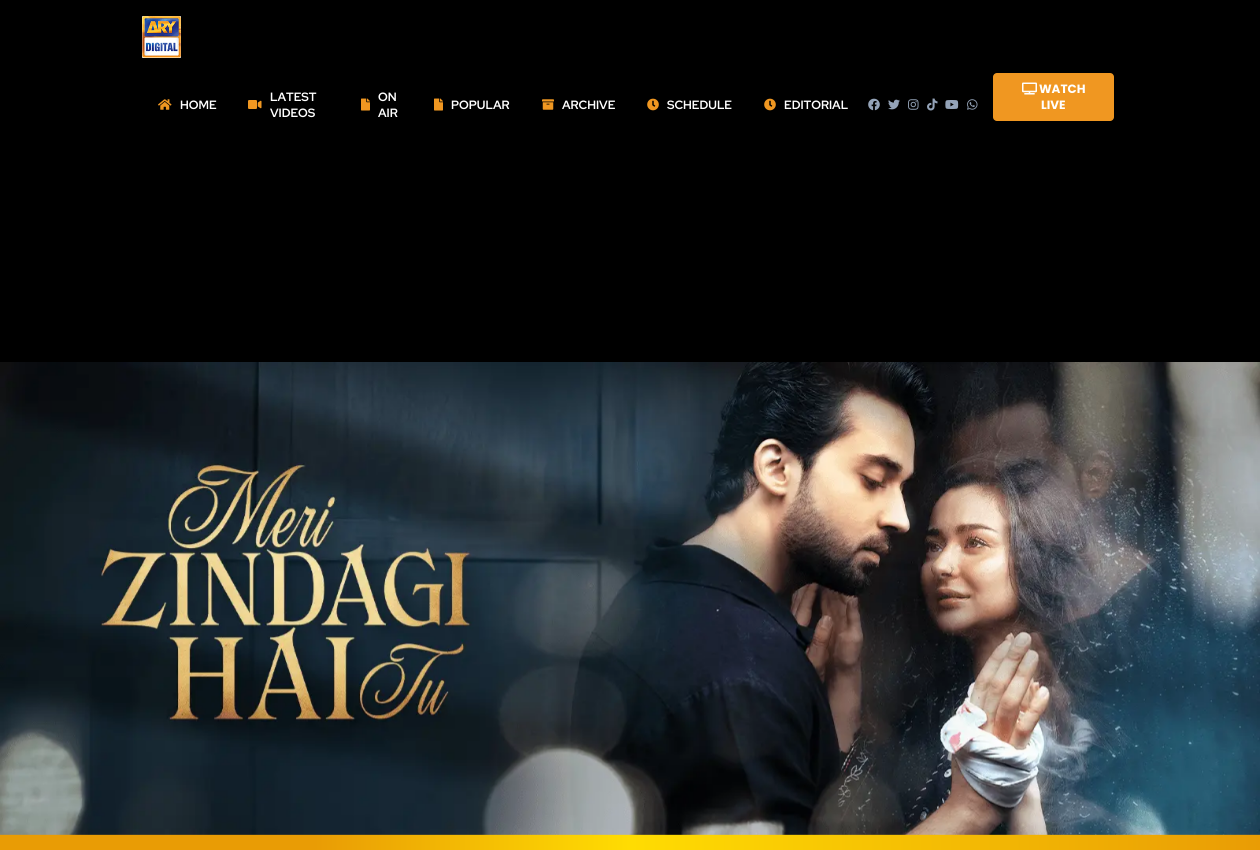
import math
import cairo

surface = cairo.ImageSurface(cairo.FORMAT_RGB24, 1260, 850)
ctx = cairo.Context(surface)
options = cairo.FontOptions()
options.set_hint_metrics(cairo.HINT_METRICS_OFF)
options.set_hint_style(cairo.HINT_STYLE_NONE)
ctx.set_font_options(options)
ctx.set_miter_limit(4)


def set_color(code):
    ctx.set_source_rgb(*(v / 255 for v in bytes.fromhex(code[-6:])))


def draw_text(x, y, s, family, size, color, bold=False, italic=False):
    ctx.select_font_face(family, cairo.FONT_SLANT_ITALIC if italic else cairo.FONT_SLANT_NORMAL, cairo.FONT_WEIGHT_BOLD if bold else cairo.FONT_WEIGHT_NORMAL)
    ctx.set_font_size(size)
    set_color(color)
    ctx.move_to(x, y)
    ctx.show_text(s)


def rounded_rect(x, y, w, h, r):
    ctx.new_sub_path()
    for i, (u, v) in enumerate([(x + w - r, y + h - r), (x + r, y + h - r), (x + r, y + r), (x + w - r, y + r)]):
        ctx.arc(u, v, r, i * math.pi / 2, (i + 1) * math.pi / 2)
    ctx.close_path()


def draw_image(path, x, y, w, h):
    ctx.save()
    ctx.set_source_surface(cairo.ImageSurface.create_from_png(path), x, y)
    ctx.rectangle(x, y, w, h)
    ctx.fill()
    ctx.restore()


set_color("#000000")
ctx.paint()
draw_image("assets/img1.png", 142, 16, 39, 42)
draw_image("assets/img2.png", 158, 99, 14, 11)
draw_text(180, 109, "HOME", "Red Hat Display", 12, "#ffffff", bold=True)
draw_text(270, 101, "LATEST", "Red Hat Display", 12, "#ffffff", bold=True)
draw_image("assets/img3.png", 248, 100, 14, 9)
draw_text(270, 117, "VIDEOS", "Red Hat Display", 12, "#ffffff", bold=True)
draw_text(378, 101, "ON", "Red Hat Display", 12, "#ffffff", bold=True)
draw_image("assets/img4.png", 361, 98, 9, 13)
draw_text(378, 117, "AIR", "Red Hat Display", 12, "#ffffff", bold=True)
draw_image("assets/img4.png", 434, 98, 9, 13)
draw_text(451, 109, "POPULAR", "Red Hat Display", 12, "#ffffff", bold=True)
draw_image("assets/img5.png", 542, 99, 12, 11)
draw_text(562, 109, "ARCHIVE", "Red Hat Display", 12, "#ffffff", bold=True)
draw_image("assets/img6.png", 647, 98, 12, 13)
draw_text(667, 109, "SCHEDULE", "Red Hat Display", 12, "#ffffff", bold=True)
draw_image("assets/img6.png", 764, 98, 12, 13)
draw_text(784, 109, "EDITORIAL", "Red Hat Display", 12, "#ffffff", bold=True)
draw_image("assets/img7.png", 868, 98, 12, 13)
draw_image("assets/img8.png", 888, 99, 12, 11)
draw_image("assets/img9.png", 908, 99, 11, 11)
draw_image("assets/img10.png", 927, 98, 11, 13)
draw_image("assets/img11.png", 945, 100, 14, 9)
draw_image("assets/img12.png", 967, 99, 11, 11)
set_color("#f09721")
rounded_rect(993, 73, 121, 48, 4)
ctx.fill()
draw_image("assets/img13.png", 1022, 82, 15, 13)
draw_text(1039, 93, "WATCH", "Poppins", 12, "#ffffff", bold=True)
draw_text(1041, 109, "LIVE", "Poppins", 12, "#ffffff", bold=True)
gradient = cairo.LinearGradient(1260, 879, 0, 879)
gradient.add_color_stop_rgba(0, 0.914, 0.612, 0.02, 1)
gradient.add_color_stop_rgba(0.5, 1, 0.863, 0.008, 1)
gradient.add_color_stop_rgba(0.75, 0.914, 0.612, 0.02, 1)
ctx.set_source(gradient)
ctx.rectangle(0, 834, 1260, 16)
ctx.fill()
draw_image("assets/img14.png", 0, 362, 1260, 473)
surface.write_to_png("output.png")
